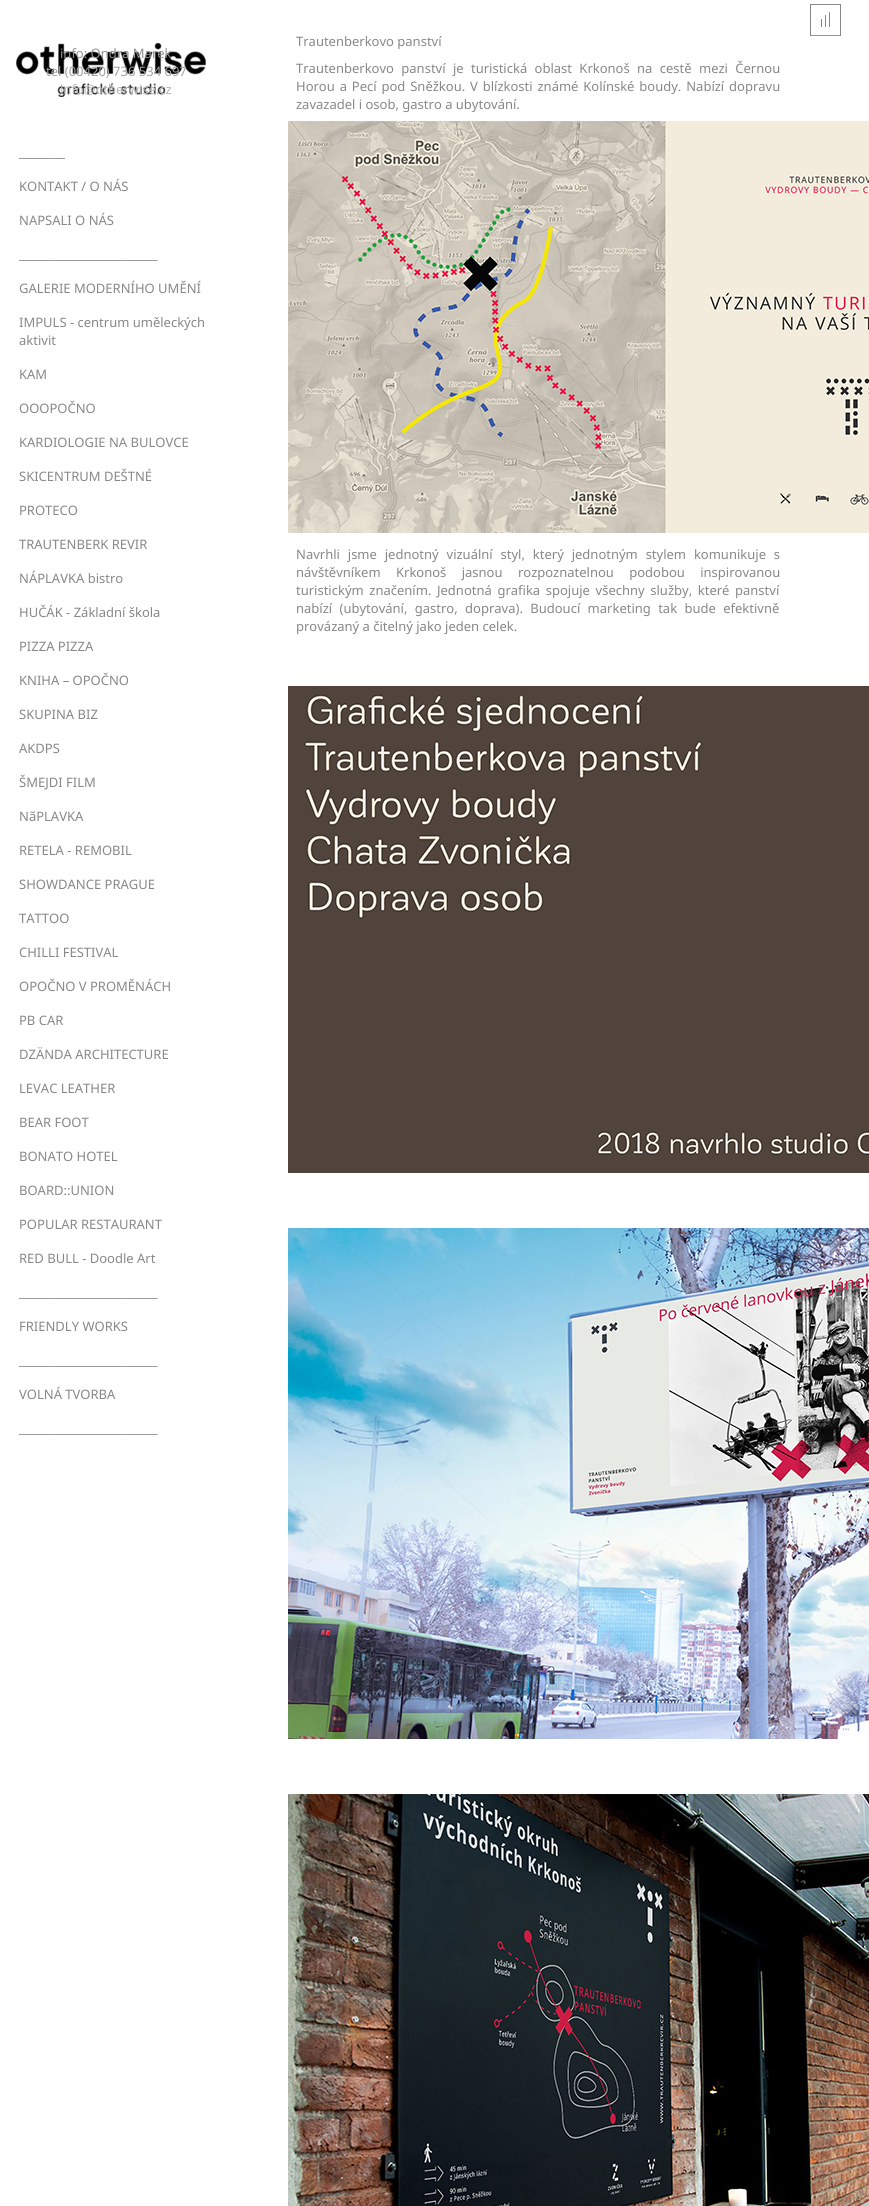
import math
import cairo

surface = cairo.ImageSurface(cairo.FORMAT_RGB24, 869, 2206)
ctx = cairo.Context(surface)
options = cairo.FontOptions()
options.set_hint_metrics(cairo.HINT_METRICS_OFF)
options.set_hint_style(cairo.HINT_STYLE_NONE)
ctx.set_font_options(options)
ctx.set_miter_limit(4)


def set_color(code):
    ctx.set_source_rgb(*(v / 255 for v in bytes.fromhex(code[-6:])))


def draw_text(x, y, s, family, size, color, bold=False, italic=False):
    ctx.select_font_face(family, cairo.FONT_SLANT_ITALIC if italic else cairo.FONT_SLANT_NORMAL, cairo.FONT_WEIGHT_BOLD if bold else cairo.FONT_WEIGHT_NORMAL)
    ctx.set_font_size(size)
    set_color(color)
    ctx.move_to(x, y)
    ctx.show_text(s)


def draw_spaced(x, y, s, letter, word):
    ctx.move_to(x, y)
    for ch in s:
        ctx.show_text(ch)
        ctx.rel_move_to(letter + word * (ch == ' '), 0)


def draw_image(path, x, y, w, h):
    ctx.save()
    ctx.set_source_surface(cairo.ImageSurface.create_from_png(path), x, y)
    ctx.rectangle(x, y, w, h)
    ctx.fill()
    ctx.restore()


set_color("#ffffff")
ctx.paint()
draw_image("assets/img1.png", 810, 4, 31, 32)
draw_image("assets/img2.png", 16, 43, 190, 54)
draw_text(60, 58, "info: Ondra Marek", "Noto Sans", 13, "#929292")
draw_text(46, 76, "tel (00420) 736 534 697", "Noto Sans", 13, "#a2a2a2")
draw_text(60, 94, "info@otherwise.cz", "Noto Sans", 13, "#b6b6b6")
draw_text(19, 157, "________", "Noto Sans", 13, "#888888")
draw_text(19, 191, "KONTAKT / O NÁS", "Noto Sans", 13, "#888888")
draw_text(19, 225, "NAPSALI O NÁS", "Noto Sans", 13, "#888888")
draw_text(19, 259, "________________________", "Noto Sans", 13, "#888888")
draw_text(19, 293, "GALERIE MODERNÍHO UMĚNÍ", "Noto Sans", 13, "#888888")
draw_text(19, 327, "IMPULS - centrum uměleckých", "Noto Sans", 13, "#888888")
draw_text(19, 345, "aktivit", "Noto Sans", 13, "#888888")
draw_text(19, 379, "KAM", "Noto Sans", 13, "#888888")
draw_text(19, 413, "OOOPOČNO", "Noto Sans", 13, "#888888")
draw_text(19, 447, "KARDIOLOGIE NA BULOVCE", "Noto Sans", 13, "#888888")
draw_text(19, 481, "SKICENTRUM DEŠTNÉ", "Noto Sans", 13, "#888888")
draw_text(19, 515, "PROTECO", "Noto Sans", 13, "#888888")
draw_text(19, 549, "TRAUTENBERK REVIR", "Noto Sans", 13, "#888888")
draw_text(19, 583, "NÁPLAVKA bistro", "Noto Sans", 13, "#888888")
draw_text(19, 617, "HUČÁK - Základní škola", "Noto Sans", 13, "#888888")
draw_text(19, 651, "PIZZA PIZZA", "Noto Sans", 13, "#888888")
draw_text(19, 685, "KNIHA – OPOČNO", "Noto Sans", 13, "#888888")
draw_text(19, 719, "SKUPINA BIZ", "Noto Sans", 13, "#888888")
draw_text(19, 753, "AKDPS", "Noto Sans", 13, "#888888")
draw_text(19, 787, "ŠMEJDI FILM", "Noto Sans", 13, "#888888")
draw_text(19, 821, "NãPLAVKA", "Noto Sans", 13, "#888888")
draw_text(19, 855, "RETELA - REMOBIL", "Noto Sans", 13, "#888888")
draw_text(19, 889, "SHOWDANCE PRAGUE", "Noto Sans", 13, "#888888")
draw_text(19, 923, "TATTOO", "Noto Sans", 13, "#888888")
draw_text(19, 957, "CHILLI FESTIVAL", "Noto Sans", 13, "#888888")
draw_text(19, 991, "OPOČNO V PROMĚNÁCH", "Noto Sans", 13, "#888888")
draw_text(19, 1025, "PB CAR", "Noto Sans", 13, "#888888")
draw_text(19, 1059, "DZÄNDA ARCHITECTURE", "Noto Sans", 13, "#888888")
draw_text(19, 1093, "LEVAC LEATHER", "Noto Sans", 13, "#888888")
draw_text(19, 1127, "BEAR FOOT", "Noto Sans", 13, "#888888")
draw_text(19, 1161, "BONATO HOTEL", "Noto Sans", 13, "#888888")
draw_text(19, 1195, "BOARD::UNION", "Noto Sans", 13, "#888888")
draw_text(19, 1229, "POPULAR RESTAURANT", "Noto Sans", 13, "#888888")
draw_text(19, 1263, "RED BULL - Doodle Art", "Noto Sans", 13, "#888888")
draw_text(19, 1297, "________________________", "Noto Sans", 13, "#888888")
draw_text(19, 1331, "FRIENDLY WORKS", "Noto Sans", 13, "#888888")
draw_text(19, 1365, "________________________", "Noto Sans", 13, "#888888")
draw_text(19, 1399, "VOLNÁ TVORBA", "Noto Sans", 13, "#888888")
draw_text(19, 1433, "________________________", "Noto Sans", 13, "#888888")
draw_text(296, 46, "Trautenberkovo panství", "Noto Sans", 13, "#888888")
draw_spaced(296, 73, "Trautenberkovo panství je turistická oblast Krkonoš na cestě mezi Černou", 0, 4)
draw_spaced(296, 91, "Horou a Pecí pod Sněžkou. V blízkosti známé Kolínské boudy. Nabízí dopravu", 0, 1.5)
draw_text(296, 109, "zavazadel i osob, gastro a ubytování.", "Noto Sans", 13, "#888888")
draw_image("assets/img3.png", 288, 121, 581, 412)
draw_spaced(296, 559, "Navrhli jsme jednotný vizuální styl, který jednotným stylem komunikuje s", 0, 4.5)
draw_spaced(296, 577, "návštěvníkem Krkonoš jasnou rozpoznatelnou podobou inspirovanou", 0, 12)
draw_spaced(296, 595, "turistickým značením. Jednotná grafika spojuje všechny služby, které panství", 0, 2.25)
draw_spaced(296, 613, "nabízí (ubytování, gastro, doprava). Budoucí marketing tak bude efektivně", 0, 4)
draw_text(296, 631, "provázaný a čitelný jako jeden celek.", "Noto Sans", 13, "#888888")
draw_image("assets/img4.png", 288, 686, 581, 487)
draw_image("assets/img5.png", 288, 1228, 581, 511)
draw_image("assets/img6.png", 288, 1794, 581, 412)
surface.write_to_png("output.png")
